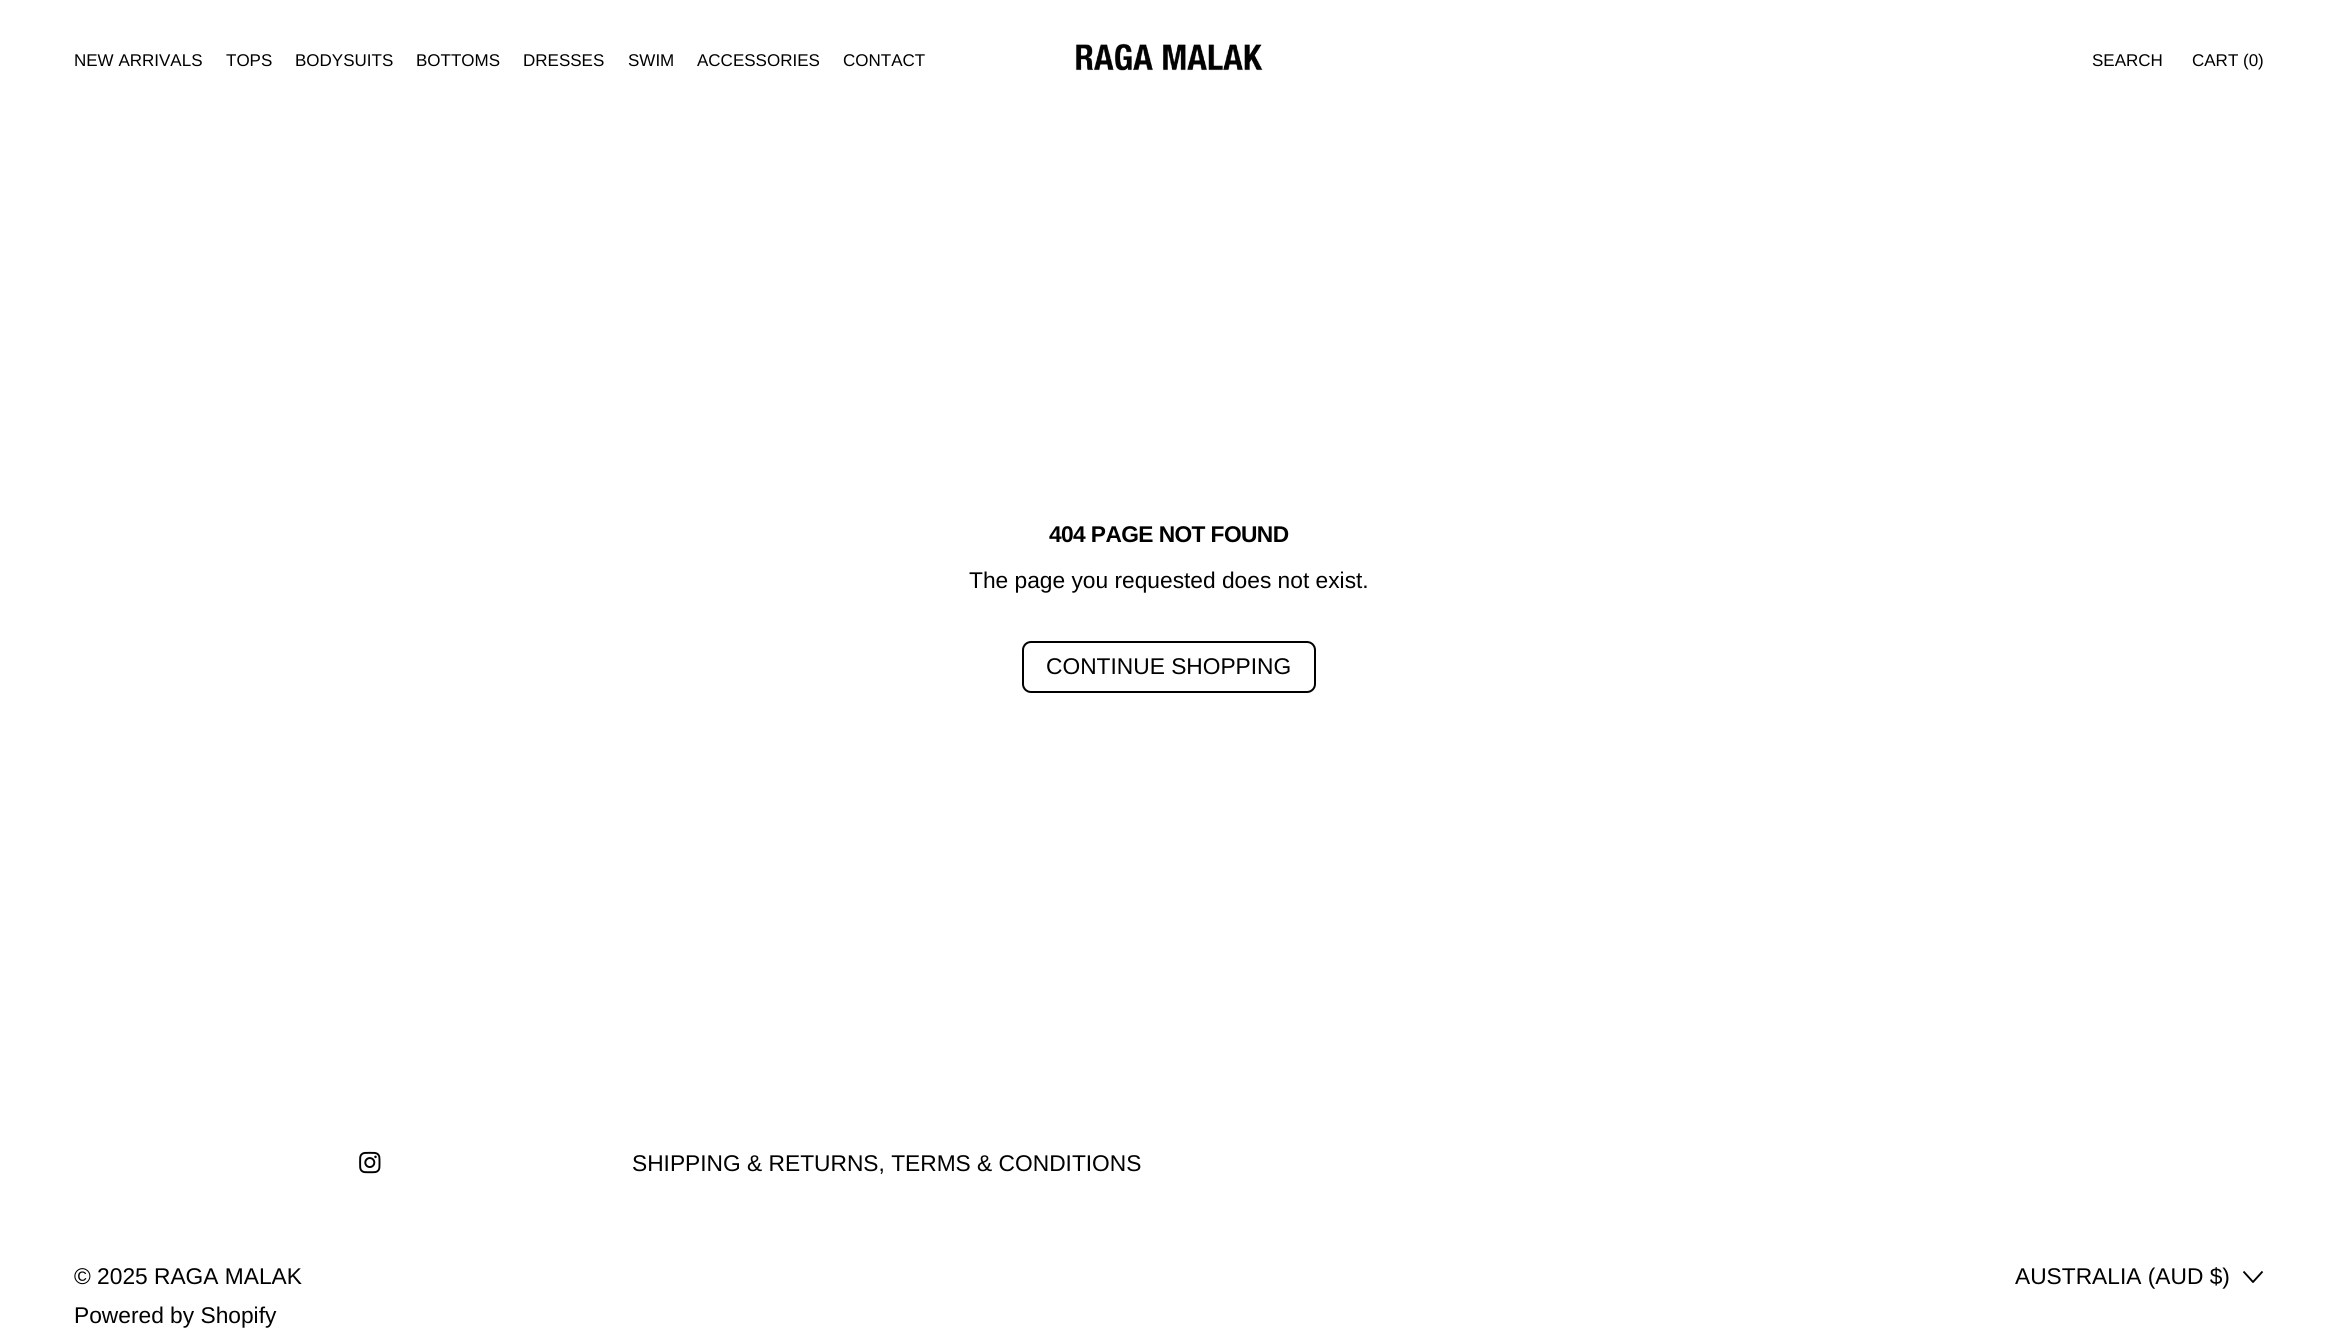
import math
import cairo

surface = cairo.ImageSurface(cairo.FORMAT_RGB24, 2338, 1344)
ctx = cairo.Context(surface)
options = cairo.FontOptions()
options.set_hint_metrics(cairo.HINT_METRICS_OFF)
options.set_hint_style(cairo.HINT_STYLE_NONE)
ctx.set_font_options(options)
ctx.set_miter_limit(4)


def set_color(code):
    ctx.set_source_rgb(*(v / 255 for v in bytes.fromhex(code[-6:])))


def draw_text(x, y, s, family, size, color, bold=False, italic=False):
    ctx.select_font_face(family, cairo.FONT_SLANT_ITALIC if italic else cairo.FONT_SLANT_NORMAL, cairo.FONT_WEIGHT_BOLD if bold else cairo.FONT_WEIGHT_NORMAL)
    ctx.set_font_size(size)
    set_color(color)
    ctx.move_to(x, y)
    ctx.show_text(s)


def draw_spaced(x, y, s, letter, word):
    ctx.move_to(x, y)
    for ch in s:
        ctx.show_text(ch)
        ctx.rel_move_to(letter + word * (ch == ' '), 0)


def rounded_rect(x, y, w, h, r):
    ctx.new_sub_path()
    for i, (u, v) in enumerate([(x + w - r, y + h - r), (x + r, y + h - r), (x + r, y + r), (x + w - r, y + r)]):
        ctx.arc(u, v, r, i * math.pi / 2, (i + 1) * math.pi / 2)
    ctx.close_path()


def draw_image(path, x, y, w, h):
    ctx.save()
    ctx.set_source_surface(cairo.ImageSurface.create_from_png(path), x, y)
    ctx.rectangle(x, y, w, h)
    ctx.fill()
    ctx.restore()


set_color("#ffffff")
ctx.paint()
draw_text(74, 66, "NEW ARRIVALS", "Liberation Sans", 17, "#000000")
draw_text(226, 66, "TOPS", "Liberation Sans", 17, "#000000")
draw_text(295, 66, "BODYSUITS", "Liberation Sans", 17, "#000000")
draw_text(416, 66, "BOTTOMS", "Liberation Sans", 17, "#000000")
draw_text(523, 66, "DRESSES", "Liberation Sans", 17, "#000000")
draw_text(628, 66, "SWIM", "Liberation Sans", 17, "#000000")
draw_text(697, 66, "ACCESSORIES", "Liberation Sans", 17, "#000000")
draw_text(843, 66, "CONTACT", "Liberation Sans", 17, "#000000")
draw_image("assets/img1.png", 1075, 43, 188, 28)
draw_text(2092, 66, "SEARCH", "Liberation Sans", 17, "#000000")
draw_text(2192, 66, "CART (0)", "Liberation Sans", 17, "#000000")
ctx.select_font_face("Liberation Sans", cairo.FONT_SLANT_NORMAL, cairo.FONT_WEIGHT_BOLD)
ctx.set_font_size(22.75)
draw_spaced(1049, 542, "404 PAGE NOT FOUND", -0.6, 0)
draw_text(969, 588, "The page you requested does not exist.", "Liberation Sans", 22.75, "#000000")
rounded_rect(1023, 642, 292, 50, 8)
ctx.stroke()
draw_text(1046, 674, "CONTINUE SHOPPING", "Liberation Sans", 22.75, "#000000")
draw_image("assets/img2.png", 359, 1151, 22, 23)
draw_text(632, 1171, "SHIPPING & RETURNS, TERMS & CONDITIONS", "Liberation Sans", 22.75, "#000000")
draw_text(74, 1284, "© 2025 RAGA MALAK", "Liberation Sans", 22.75, "#000000")
draw_text(74, 1323, "Powered by Shopify", "Liberation Sans", 22.75, "#000000")
draw_text(2015, 1284, "AUSTRALIA (AUD $)", "Liberation Sans", 22.75, "#000000")
ctx.new_path()
ctx.move_to(2243.5, 1271.5)
ctx.line_to(2253, 1282)
ctx.line_to(2262.5, 1271.5)
ctx.set_line_width(1.9)
ctx.set_line_join(cairo.LINE_JOIN_ROUND)
ctx.stroke()
surface.write_to_png("output.png")
